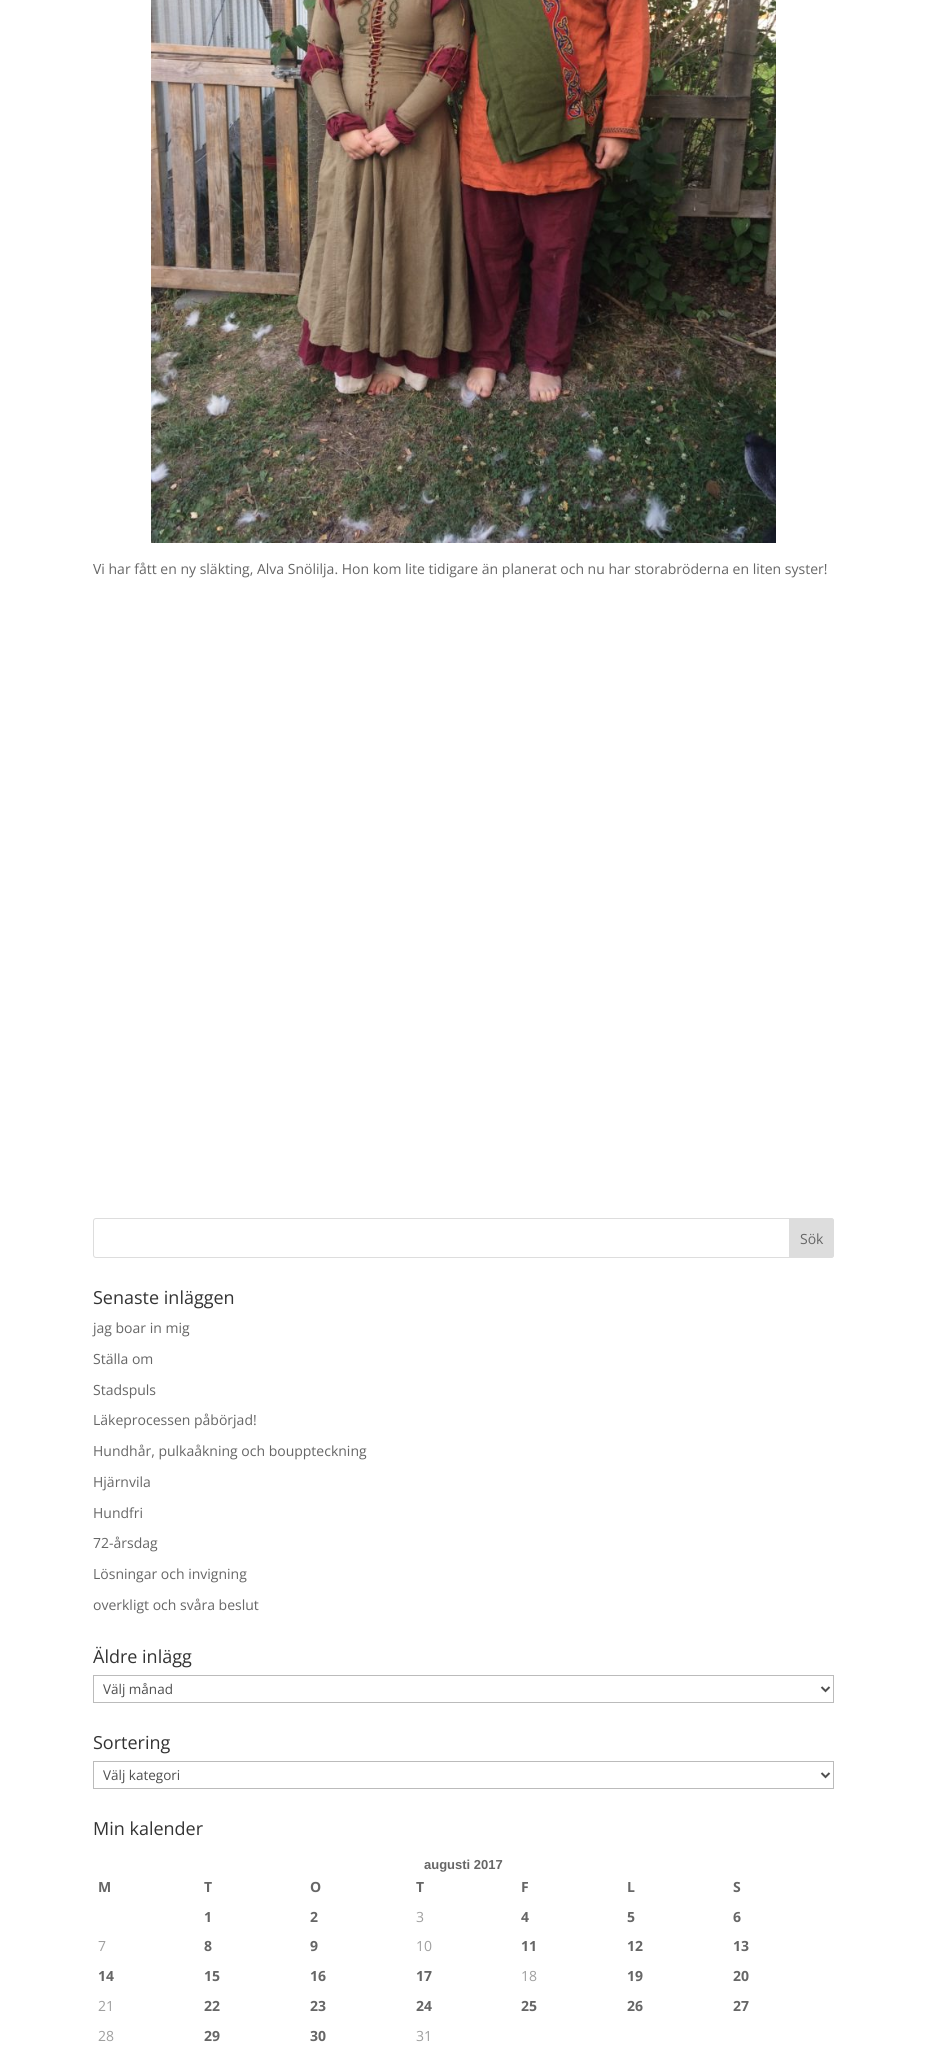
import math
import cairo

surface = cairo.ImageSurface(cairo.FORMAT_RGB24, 927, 2048)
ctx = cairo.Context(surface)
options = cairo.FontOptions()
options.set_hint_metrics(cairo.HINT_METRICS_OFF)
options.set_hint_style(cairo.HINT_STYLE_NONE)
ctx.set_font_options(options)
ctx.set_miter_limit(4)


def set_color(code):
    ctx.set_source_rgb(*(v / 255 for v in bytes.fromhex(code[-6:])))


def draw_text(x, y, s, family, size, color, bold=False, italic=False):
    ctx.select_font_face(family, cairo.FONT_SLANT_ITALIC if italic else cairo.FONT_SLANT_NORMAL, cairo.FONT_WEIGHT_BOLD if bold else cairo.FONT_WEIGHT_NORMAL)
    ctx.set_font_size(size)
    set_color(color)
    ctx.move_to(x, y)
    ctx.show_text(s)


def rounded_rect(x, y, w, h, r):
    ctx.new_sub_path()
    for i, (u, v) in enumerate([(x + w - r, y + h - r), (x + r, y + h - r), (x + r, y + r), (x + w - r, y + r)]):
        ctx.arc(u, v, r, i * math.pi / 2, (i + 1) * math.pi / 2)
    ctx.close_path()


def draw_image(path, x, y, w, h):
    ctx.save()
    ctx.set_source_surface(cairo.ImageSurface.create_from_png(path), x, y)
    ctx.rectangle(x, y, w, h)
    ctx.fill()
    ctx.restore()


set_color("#ffffff")
ctx.paint()
draw_image("assets/img1.png", 151, 0, 625, 543)
draw_text(93, 574, "Vi har fått en ny släkting, Alva Snölilja. Hon kom lite tidigare än planerat och nu har storabröderna en liten syster!", "Open Sans", 14, "#666666")
rounded_rect(93.5, 1218.5, 740, 39, 2.5)
set_color("#dddddd")
ctx.set_line_width(1)
ctx.stroke()
ctx.new_path()
ctx.move_to(789.5, 1218.5)
ctx.line_to(831, 1218.5)
ctx.curve_to(832.5, 1218.5, 833.5, 1219.5, 833.5, 1221)
ctx.line_to(833.5, 1255)
ctx.curve_to(833.5, 1256.5, 832.5, 1257.5, 831, 1257.5)
ctx.line_to(789.5, 1257.5)
ctx.close_path()
ctx.fill_preserve()
ctx.stroke()
draw_text(800, 1244, "Sök", "Open Sans", 14, "#666666")
draw_text(93, 1304, "Senaste inläggen", "Open Sans", 18, "#333333")
draw_text(93, 1333, "jag boar in mig", "Open Sans", 14, "#666666")
draw_text(93, 1364, "Ställa om", "Open Sans", 14, "#666666")
draw_text(93, 1395, "Stadspuls", "Open Sans", 14, "#666666")
draw_text(93, 1425, "Läkeprocessen påbörjad!", "Open Sans", 14, "#666666")
draw_text(93, 1456, "Hundhår, pulkaåkning och bouppteckning", "Open Sans", 14, "#666666")
draw_text(93, 1487, "Hjärnvila", "Open Sans", 14, "#666666")
draw_text(93, 1518, "Hundfri", "Open Sans", 14, "#666666")
draw_text(93, 1548, "72-årsdag", "Open Sans", 14, "#666666")
draw_text(93, 1579, "Lösningar och invigning", "Open Sans", 14, "#666666")
draw_text(93, 1610, "overkligt och svåra beslut", "Open Sans", 14, "#666666")
draw_text(93, 1663, "Äldre inlägg", "Open Sans", 18, "#333333")
ctx.rectangle(93.5, 1675.5, 740, 27)
set_color("#bbbbbb")
ctx.stroke()
ctx.new_path()
ctx.move_to(821.5, 1687)
ctx.line_to(825.5, 1691)
ctx.line_to(829.5, 1687)
set_color("#4e4e4e")
ctx.set_line_width(2)
ctx.stroke()
draw_text(103, 1694, "Välj månad", "Open Sans", 13.5, "#4e4e4e")
draw_text(93, 1749, "Sortering", "Open Sans", 18, "#333333")
ctx.rectangle(93.5, 1761.5, 740, 27)
set_color("#bbbbbb")
ctx.set_line_width(1)
ctx.stroke()
ctx.new_path()
ctx.move_to(821.5, 1773)
ctx.line_to(825.5, 1777)
ctx.line_to(829.5, 1773)
set_color("#4e4e4e")
ctx.set_line_width(2)
ctx.stroke()
draw_text(103, 1780, "Välj kategori", "Open Sans", 13.5, "#4e4e4e")
draw_text(93, 1835, "Min kalender", "Open Sans", 18, "#333333")
draw_text(424, 1869, "augusti 2017", "Liberation Sans", 13, "#666666", bold=True)
draw_text(98, 1892, "M", "Open Sans", 14, "#666666", bold=True)
draw_text(204, 1892, "T", "Open Sans", 14, "#666666", bold=True)
draw_text(310, 1892, "O", "Open Sans", 14, "#666666", bold=True)
draw_text(416, 1892, "T", "Open Sans", 14, "#666666", bold=True)
draw_text(521, 1892, "F", "Open Sans", 14, "#666666", bold=True)
draw_text(627, 1892, "L", "Open Sans", 14, "#666666", bold=True)
draw_text(733, 1892, "S", "Open Sans", 14, "#666666", bold=True)
draw_text(204, 1922, "1", "Open Sans", 14, "#666666", bold=True)
draw_text(310, 1922, "2", "Open Sans", 14, "#666666", bold=True)
draw_text(416, 1922, "3", "Open Sans", 14, "#9f9f9f")
draw_text(521, 1922, "4", "Open Sans", 14, "#666666", bold=True)
draw_text(627, 1922, "5", "Open Sans", 14, "#666666", bold=True)
draw_text(733, 1922, "6", "Open Sans", 14, "#666666", bold=True)
draw_text(98, 1951, "7", "Open Sans", 14, "#9f9f9f")
draw_text(204, 1951, "8", "Open Sans", 14, "#666666", bold=True)
draw_text(310, 1951, "9", "Open Sans", 14, "#666666", bold=True)
draw_text(416, 1951, "10", "Open Sans", 14, "#9f9f9f")
draw_text(521, 1951, "11", "Open Sans", 14, "#666666", bold=True)
draw_text(627, 1951, "12", "Open Sans", 14, "#666666", bold=True)
draw_text(733, 1951, "13", "Open Sans", 14, "#666666", bold=True)
draw_text(98, 1981, "14", "Open Sans", 14, "#666666", bold=True)
draw_text(204, 1981, "15", "Open Sans", 14, "#666666", bold=True)
draw_text(310, 1981, "16", "Open Sans", 14, "#666666", bold=True)
draw_text(416, 1981, "17", "Open Sans", 14, "#666666", bold=True)
draw_text(521, 1981, "18", "Open Sans", 14, "#9f9f9f")
draw_text(627, 1981, "19", "Open Sans", 14, "#666666", bold=True)
draw_text(733, 1981, "20", "Open Sans", 14, "#666666", bold=True)
draw_text(98, 2011, "21", "Open Sans", 14, "#9f9f9f")
draw_text(204, 2011, "22", "Open Sans", 14, "#666666", bold=True)
draw_text(310, 2011, "23", "Open Sans", 14, "#666666", bold=True)
draw_text(416, 2011, "24", "Open Sans", 14, "#666666", bold=True)
draw_text(521, 2011, "25", "Open Sans", 14, "#666666", bold=True)
draw_text(627, 2011, "26", "Open Sans", 14, "#666666", bold=True)
draw_text(733, 2011, "27", "Open Sans", 14, "#666666", bold=True)
draw_text(98, 2041, "28", "Open Sans", 14, "#9f9f9f")
draw_text(204, 2041, "29", "Open Sans", 14, "#666666", bold=True)
draw_text(310, 2041, "30", "Open Sans", 14, "#666666", bold=True)
draw_text(416, 2041, "31", "Open Sans", 14, "#9f9f9f")
surface.write_to_png("output.png")
